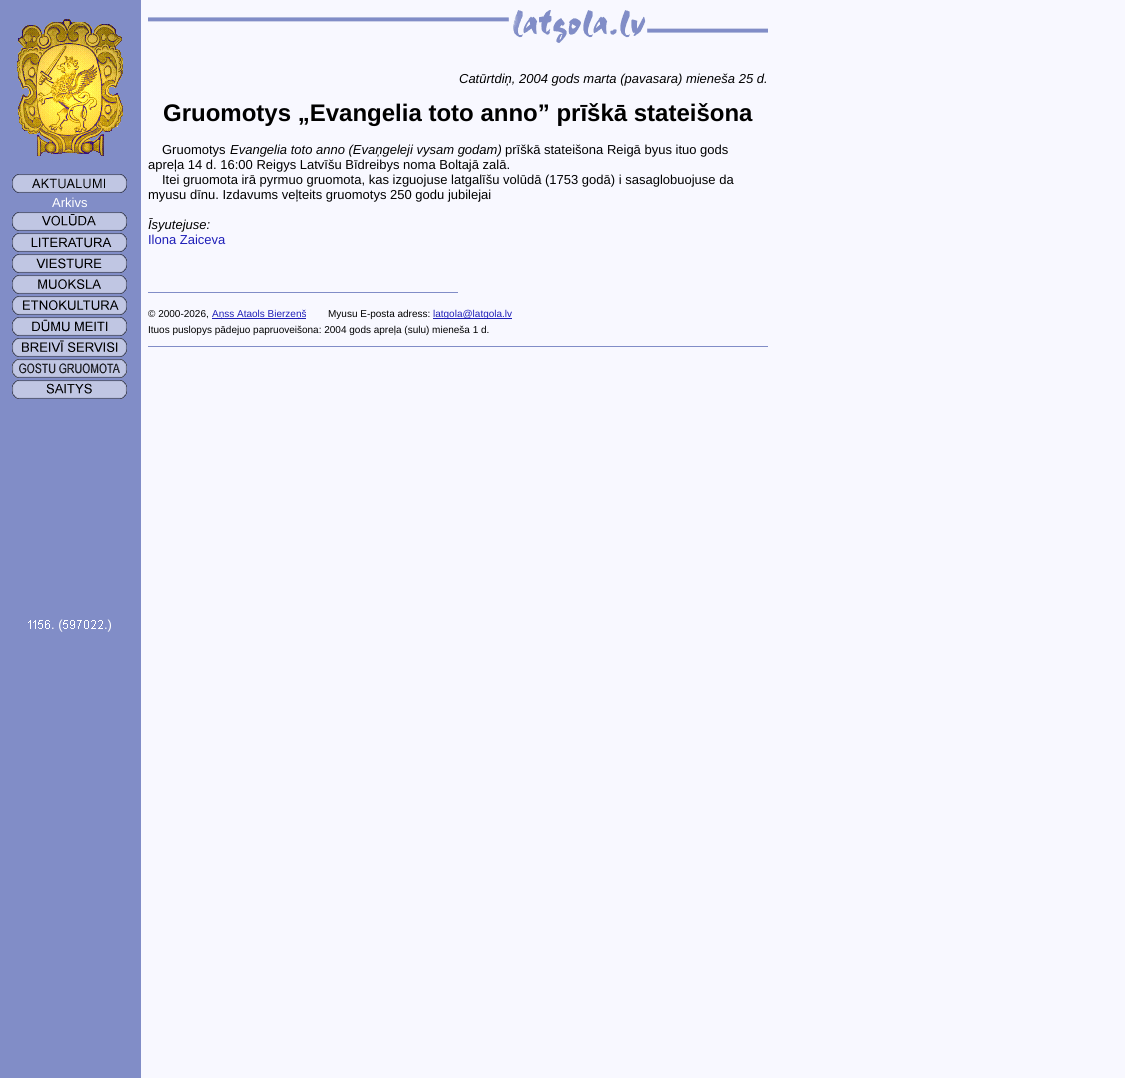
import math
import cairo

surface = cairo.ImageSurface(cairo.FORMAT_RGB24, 1125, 1078)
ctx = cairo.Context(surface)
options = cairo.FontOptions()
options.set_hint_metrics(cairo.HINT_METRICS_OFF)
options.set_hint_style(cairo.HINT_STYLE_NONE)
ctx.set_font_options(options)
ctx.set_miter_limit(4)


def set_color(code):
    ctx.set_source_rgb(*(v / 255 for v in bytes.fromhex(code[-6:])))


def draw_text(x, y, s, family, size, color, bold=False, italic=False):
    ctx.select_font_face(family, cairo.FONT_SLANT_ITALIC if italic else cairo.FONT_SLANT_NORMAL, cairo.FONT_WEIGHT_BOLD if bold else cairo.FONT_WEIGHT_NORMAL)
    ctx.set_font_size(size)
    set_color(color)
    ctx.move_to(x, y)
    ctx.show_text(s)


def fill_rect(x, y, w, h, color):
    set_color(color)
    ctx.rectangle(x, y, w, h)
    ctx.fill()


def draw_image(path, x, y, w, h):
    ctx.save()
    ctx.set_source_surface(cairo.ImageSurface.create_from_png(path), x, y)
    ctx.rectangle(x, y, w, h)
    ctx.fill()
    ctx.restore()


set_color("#f8f8ff")
ctx.paint()
fill_rect(0, 0, 141, 1078, "#818dc7")
draw_image("assets/img1.png", 17, 19, 106, 137)
draw_image("assets/img2.png", 12, 174, 115, 19)
draw_text(52, 207, "Arkivs", "Liberation Sans", 13, "#ffffff")
draw_image("assets/img3.png", 12, 212, 115, 19)
draw_image("assets/img4.png", 12, 233, 115, 19)
draw_image("assets/img5.png", 12, 254, 115, 19)
draw_image("assets/img6.png", 12, 275, 115, 19)
draw_image("assets/img7.png", 12, 296, 115, 19)
draw_image("assets/img8.png", 12, 317, 115, 19)
draw_image("assets/img9.png", 12, 338, 115, 19)
draw_image("assets/img10.png", 12, 359, 115, 19)
draw_image("assets/img11.png", 12, 380, 115, 19)
draw_image("assets/img12.png", 28, 620, 22, 9)
draw_text(51, 629, ". (", "Liberation Sans", 13, "#ffffff")
draw_image("assets/img13.png", 63, 620, 40, 9)
draw_text(104, 629, ".)", "Liberation Sans", 13, "#ffffff")
draw_image("assets/img14.png", 148, 10, 620, 33)
draw_text(459, 83, "Catūrtdiņ, 2004 gods marta (pavasara) mieneša 25 d.", "Liberation Sans", 13, "#000000", italic=True)
draw_text(163, 121, "Gruomotys „Evangelia toto anno” prīškā stateišona", "Liberation Sans", 24, "#000000", bold=True)
draw_text(162, 154, "Gruomotys", "Liberation Sans", 13, "#000000")
draw_text(230, 154, "Evangelia toto anno (Evaņgeleji vysam godam)", "Liberation Sans", 13, "#000000", italic=True)
draw_text(505, 154, "prīškā stateišona Reigā byus ituo gods", "Liberation Sans", 13, "#000000")
draw_text(148, 169, "apreļa 14 d. 16:00 Reigys Latvīšu Bīdreibys noma Boltajā zalā.", "Liberation Sans", 13, "#000000")
draw_text(162, 184, "Itei gruomota irā pyrmuo gruomota, kas izguojuse latgalīšu volūdā (1753 godā) i sasaglobuojuse da", "Liberation Sans", 13, "#000000")
draw_text(148, 199, "myusu dīnu. Izdavums veļteits gruomotys 250 godu jubilejai", "Liberation Sans", 13, "#000000")
draw_text(148, 229, "Īsyutejuse:", "Liberation Sans", 13, "#000000", italic=True)
draw_text(148, 244, "Ilona Zaiceva", "Liberation Sans", 13, "#1f1fb8")
fill_rect(148, 292, 310, 1, "#818dc7")
draw_text(148, 317, "© 2000-2026,", "Liberation Sans", 10, "#000000")
fill_rect(212, 318, 94, 1, "#1f1fb8")
draw_text(212, 317, "Aņss Ataols Bierzeņš", "Liberation Sans", 10, "#1f1fb8")
draw_text(328, 317, "Myusu E-posta adress:", "Liberation Sans", 10, "#000000")
fill_rect(433, 318, 79, 1, "#1f1fb8")
draw_text(433, 317, "latgola@latgola.lv", "Liberation Sans", 10, "#1f1fb8")
draw_text(148, 333, "Ituos puslopys pādejuo papruoveišona: 2004 gods apreļa (sulu) mieneša 1 d.", "Liberation Sans", 10, "#000000")
fill_rect(148, 346, 620, 1, "#818dc7")
surface.write_to_png("output.png")
